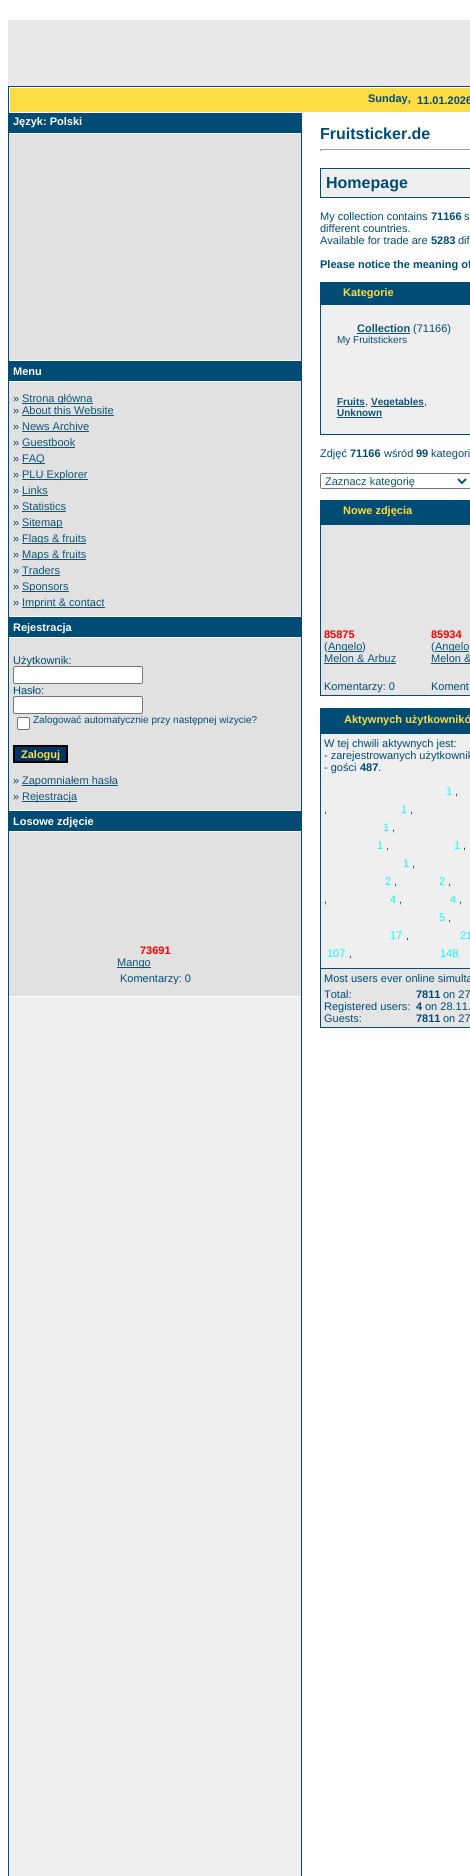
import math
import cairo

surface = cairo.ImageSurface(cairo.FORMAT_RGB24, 470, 1876)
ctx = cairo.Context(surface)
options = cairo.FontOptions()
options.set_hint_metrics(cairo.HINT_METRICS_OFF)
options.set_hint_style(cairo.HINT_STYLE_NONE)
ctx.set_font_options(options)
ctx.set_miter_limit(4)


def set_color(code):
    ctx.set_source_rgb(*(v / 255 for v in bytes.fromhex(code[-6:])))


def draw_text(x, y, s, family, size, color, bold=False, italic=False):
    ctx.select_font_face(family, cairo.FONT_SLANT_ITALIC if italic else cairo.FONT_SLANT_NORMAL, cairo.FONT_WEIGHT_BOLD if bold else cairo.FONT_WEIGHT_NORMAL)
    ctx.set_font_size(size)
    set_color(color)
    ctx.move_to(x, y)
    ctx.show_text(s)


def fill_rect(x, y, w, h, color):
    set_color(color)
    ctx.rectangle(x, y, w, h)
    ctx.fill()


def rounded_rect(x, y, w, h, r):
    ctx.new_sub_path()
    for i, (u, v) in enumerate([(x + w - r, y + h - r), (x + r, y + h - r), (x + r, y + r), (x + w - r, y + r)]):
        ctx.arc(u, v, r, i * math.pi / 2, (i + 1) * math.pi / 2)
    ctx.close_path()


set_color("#ffffff")
ctx.paint()
fill_rect(8, 20, 462, 66, "#e8e8e8")
fill_rect(8, 86, 462, 1790, "#004c75")
fill_rect(9, 87, 461, 1789, "#ffffff")
fill_rect(10, 88, 460, 24, "#fcdc43")
draw_text(368, 102, "Sunday,", "Liberation Sans", 11, "#004c75", bold=True)
draw_text(417, 104, "11.01.2026", "Liberation Sans", 11, "#004c75", bold=True)
fill_rect(9, 997, 292, 879, "#efefef")
fill_rect(9, 113, 292, 20, "#004c75")
draw_text(13, 125, "Język: Polski", "Liberation Sans", 11, "#ffffff", bold=True)
fill_rect(9, 134, 292, 226, "#e1e1e1")
fill_rect(9, 361, 292, 20, "#004c75")
draw_text(13, 375, "Menu", "Liberation Sans", 11, "#ffffff", bold=True)
fill_rect(9, 382, 292, 234, "#e1e1e1")
draw_text(13, 402, "»", "Liberation Sans", 11, "#004c75")
fill_rect(22, 403, 71, 1, "#0f5475")
draw_text(22, 402, "Strona główna", "Liberation Sans", 11, "#0f5475")
draw_text(13, 414, "»", "Liberation Sans", 11, "#004c75")
draw_text(22, 414, "About this Website", "Liberation Sans", 11, "#0f5475")
fill_rect(22, 415, 92, 1, "#0f5475")
draw_text(13, 430, "»", "Liberation Sans", 11, "#004c75")
draw_text(22, 430, "News Archive", "Liberation Sans", 11, "#0f5475")
fill_rect(22, 431, 67, 1, "#0f5475")
draw_text(13, 446, "»", "Liberation Sans", 11, "#004c75")
draw_text(22, 446, "Guestbook", "Liberation Sans", 11, "#0f5475")
fill_rect(22, 447, 53, 1, "#0f5475")
draw_text(13, 462, "»", "Liberation Sans", 11, "#004c75")
fill_rect(22, 463, 23, 1, "#0f5475")
draw_text(22, 462, "FAQ", "Liberation Sans", 11, "#0f5475")
draw_text(13, 478, "»", "Liberation Sans", 11, "#004c75")
fill_rect(22, 479, 66, 1, "#0f5475")
draw_text(22, 478, "PLU Explorer", "Liberation Sans", 11, "#0f5475")
draw_text(13, 494, "»", "Liberation Sans", 11, "#004c75")
draw_text(22, 494, "Links", "Liberation Sans", 11, "#0f5475")
fill_rect(22, 495, 26, 1, "#0f5475")
draw_text(13, 510, "»", "Liberation Sans", 11, "#004c75")
draw_text(22, 510, "Statistics", "Liberation Sans", 11, "#0f5475")
fill_rect(22, 511, 44, 1, "#0f5475")
draw_text(13, 526, "»", "Liberation Sans", 11, "#004c75")
fill_rect(22, 527, 41, 1, "#0f5475")
draw_text(22, 526, "Sitemap", "Liberation Sans", 11, "#0f5475")
draw_text(13, 542, "»", "Liberation Sans", 11, "#004c75")
fill_rect(22, 543, 64, 1, "#0f5475")
draw_text(22, 542, "Flags & fruits", "Liberation Sans", 11, "#0f5475")
draw_text(13, 558, "»", "Liberation Sans", 11, "#004c75")
fill_rect(22, 559, 64, 1, "#0f5475")
draw_text(22, 558, "Maps & fruits", "Liberation Sans", 11, "#0f5475")
draw_text(13, 574, "»", "Liberation Sans", 11, "#004c75")
draw_text(22, 574, "Traders", "Liberation Sans", 11, "#0f5475")
fill_rect(22, 575, 38, 1, "#0f5475")
draw_text(13, 590, "»", "Liberation Sans", 11, "#004c75")
fill_rect(22, 591, 47, 1, "#0f5475")
draw_text(22, 590, "Sponsors", "Liberation Sans", 11, "#0f5475")
draw_text(13, 606, "»", "Liberation Sans", 11, "#004c75")
fill_rect(22, 607, 83, 1, "#0f5475")
draw_text(22, 606, "Imprint & contact", "Liberation Sans", 11, "#0f5475")
fill_rect(9, 617, 292, 20, "#004c75")
draw_text(13, 631, "Rejestracja", "Liberation Sans", 11, "#ffffff", bold=True)
fill_rect(9, 638, 292, 172, "#e1e1e1")
draw_text(13, 664, "Użytkownik:", "Liberation Sans", 11, "#004c75")
set_color("#ffffff")
rounded_rect(13.5, 666.5, 129, 17, 1.5)
ctx.fill_preserve()
set_color("#767676")
ctx.set_line_width(1)
ctx.stroke()
draw_text(13, 694, "Hasło:", "Liberation Sans", 11, "#004c75")
set_color("#ffffff")
rounded_rect(13.5, 696.5, 129, 17, 1.5)
ctx.fill_preserve()
set_color("#767676")
ctx.stroke()
set_color("#ffffff")
rounded_rect(17.5, 717.5, 12, 12, 1.5)
ctx.fill_preserve()
set_color("#767676")
ctx.stroke()
draw_text(33, 723, "Zalogować automatycznie przy następnej wizycie?", "Liberation Sans", 10, "#004c75")
set_color("#003366")
ctx.rectangle(14, 746, 53, 16)
ctx.fill_preserve()
set_color("#000000")
ctx.set_line_width(2)
ctx.stroke()
draw_text(21, 758, "Zaloguj", "Liberation Sans", 11, "#fcdc43", bold=True)
draw_text(13, 784, "»", "Liberation Sans", 11, "#004c75")
fill_rect(22, 785, 96, 1, "#0f5475")
draw_text(22, 784, "Zapomniałem hasła", "Liberation Sans", 11, "#0f5475")
draw_text(13, 800, "»", "Liberation Sans", 11, "#004c75")
fill_rect(22, 801, 55, 1, "#0f5475")
draw_text(22, 800, "Rejestracja", "Liberation Sans", 11, "#0f5475")
fill_rect(9, 811, 292, 20, "#004c75")
draw_text(13, 825, "Losowe zdjęcie", "Liberation Sans", 11, "#ffffff", bold=True)
fill_rect(9, 832, 292, 164, "#e1e1e1")
draw_text(140, 954, "73691", "Liberation Sans", 11, "#ff0000", bold=True)
fill_rect(117, 967, 34, 1, "#0f5475")
draw_text(117, 966, "Mango", "Liberation Sans", 11, "#0f5475")
draw_text(120, 982, "Komentarzy: 0", "Liberation Sans", 11, "#004c75")
fill_rect(301, 113, 1, 1763, "#004c75")
draw_text(320, 139, "Fruitsticker.de", "Liberation Sans", 16, "#004c75", bold=True)
fill_rect(320, 149, 150, 1, "#9f9f9f")
fill_rect(320, 149, 1, 2, "#9f9f9f")
fill_rect(320, 168, 150, 30, "#004c75")
fill_rect(321, 169, 149, 28, "#efefef")
draw_text(326, 188, "Homepage", "Liberation Sans", 16, "#004c75", bold=True)
draw_text(320, 220, "My collection contains", "Liberation Sans", 11, "#004c75")
draw_text(431, 220, "71166", "Liberation Sans", 11, "#004c75", bold=True)
draw_text(464, 220, "s", "Liberation Sans", 11, "#004c75")
draw_text(320, 232, "different countries.", "Liberation Sans", 11, "#004c75")
draw_text(320, 244, "Available for trade are", "Liberation Sans", 11, "#004c75")
draw_text(431, 244, "5283", "Liberation Sans", 11, "#004c75", bold=True)
draw_text(458, 244, "dif", "Liberation Sans", 11, "#004c75")
draw_text(320, 268, "Please notice the meaning of", "Liberation Sans", 11, "#004c75", bold=True)
fill_rect(320, 282, 150, 153, "#004c75")
draw_text(343, 296, "Kategorie", "Liberation Sans", 11, "#fcdc43", bold=True)
fill_rect(321, 305, 149, 129, "#efefef")
draw_text(357, 332, "Collection", "Liberation Sans", 11, "#0f5475", bold=True)
fill_rect(357, 333, 53, 1, "#0f5475")
draw_text(413, 332, "(71166)", "Liberation Sans", 11, "#004c75")
draw_text(337, 343, "My Fruitstickers", "Liberation Sans", 10, "#004c75")
draw_text(337, 405, "Fruits", "Liberation Sans", 10, "#0f5475", bold=True)
fill_rect(337, 406, 28, 1, "#0f5475")
draw_text(365, 405, ",", "Liberation Sans", 11, "#004c75")
fill_rect(371, 406, 53, 1, "#0f5475")
draw_text(371, 405, "Vegetables", "Liberation Sans", 10, "#0f5475", bold=True)
draw_text(424, 405, ",", "Liberation Sans", 11, "#004c75")
draw_text(337, 416, "Unknown", "Liberation Sans", 10, "#0f5475", bold=True)
fill_rect(337, 417, 45, 1, "#0f5475")
draw_text(320, 457, "Zdjęć", "Liberation Sans", 11, "#004c75")
draw_text(350, 457, "71166", "Liberation Sans", 11, "#004c75", bold=True)
draw_text(384, 457, "wśród", "Liberation Sans", 11, "#004c75")
draw_text(416, 457, "99", "Liberation Sans", 11, "#004c75", bold=True)
draw_text(431, 457, "kategori", "Liberation Sans", 11, "#004c75")
rounded_rect(320.5, 473.5, 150, 15, 1.5)
set_color("#767676")
ctx.set_line_width(1)
ctx.stroke()
ctx.new_path()
ctx.move_to(458, 479)
ctx.line_to(462, 483)
ctx.line_to(466, 479)
set_color("#0f5475")
ctx.set_line_width(2)
ctx.stroke()
draw_text(325, 485, "Zaznacz kategorię", "Liberation Sans", 11, "#0f5475")
fill_rect(320, 500, 150, 196, "#004c75")
fill_rect(343, 515, 69, 1, "#0f5475")
draw_text(343, 514, "Nowe zdjęcia", "Liberation Sans", 11, "#fcdc43", bold=True)
fill_rect(321, 525, 149, 170, "#e5e5e5")
draw_text(324, 638, "85875", "Liberation Sans", 11, "#ff0000", bold=True)
draw_text(324, 650, "(", "Liberation Sans", 11, "#004c75")
fill_rect(328, 651, 34, 1, "#0f5475")
draw_text(328, 650, "Angelo", "Liberation Sans", 11, "#0f5475")
draw_text(362, 650, ")", "Liberation Sans", 11, "#004c75")
draw_text(324, 662, "Melon & Arbuz", "Liberation Sans", 11, "#0f5475")
fill_rect(324, 663, 72, 1, "#0f5475")
draw_text(324, 690, "Komentarzy: 0", "Liberation Sans", 11, "#004c75")
draw_text(431, 638, "85934", "Liberation Sans", 11, "#ff0000", bold=True)
draw_text(431, 650, "(", "Liberation Sans", 11, "#004c75")
fill_rect(435, 651, 34, 1, "#0f5475")
draw_text(435, 650, "Angelo", "Liberation Sans", 11, "#0f5475")
draw_text(431, 662, "Melon &", "Liberation Sans", 11, "#0f5475")
fill_rect(431, 663, 39, 1, "#0f5475")
draw_text(431, 690, "Koment", "Liberation Sans", 11, "#004c75")
fill_rect(320, 708, 150, 320, "#004c75")
draw_text(344, 723, "Aktywnych użytkownikó", "Liberation Sans", 11, "#fcdc43", bold=True)
fill_rect(321, 734, 149, 234, "#efefef")
draw_text(324, 747, "W tej chwili aktywnych jest:", "Liberation Sans", 11, "#004c75")
draw_text(324, 759, "- zarejestrowanych użytkownik", "Liberation Sans", 11, "#004c75")
draw_text(324, 771, "- gości", "Liberation Sans", 11, "#004c75")
draw_text(360, 771, "487", "Liberation Sans", 11, "#004c75", bold=True)
draw_text(378, 771, ".", "Liberation Sans", 11, "#004c75")
draw_text(446, 795, "1", "Liberation Sans", 11, "#00ffff")
draw_text(455, 795, ",", "Liberation Sans", 11, "#004c75")
draw_text(324, 813, ",", "Liberation Sans", 11, "#004c75")
draw_text(401, 813, "1", "Liberation Sans", 11, "#00ffff")
draw_text(410, 813, ",", "Liberation Sans", 11, "#004c75")
draw_text(383, 831, "1", "Liberation Sans", 11, "#00ffff")
draw_text(392, 831, ",", "Liberation Sans", 11, "#004c75")
draw_text(377, 849, "1", "Liberation Sans", 11, "#00ffff")
draw_text(386, 849, ",", "Liberation Sans", 11, "#004c75")
draw_text(454, 849, "1", "Liberation Sans", 11, "#00ffff")
draw_text(463, 849, ",", "Liberation Sans", 11, "#004c75")
draw_text(403, 867, "1", "Liberation Sans", 11, "#00ffff")
draw_text(412, 867, ",", "Liberation Sans", 11, "#004c75")
draw_text(385, 885, "2", "Liberation Sans", 11, "#00ffff")
draw_text(394, 885, ",", "Liberation Sans", 11, "#004c75")
draw_text(439, 885, "2", "Liberation Sans", 11, "#00ffff")
draw_text(448, 885, ",", "Liberation Sans", 11, "#004c75")
draw_text(324, 903, ",", "Liberation Sans", 11, "#004c75")
draw_text(390, 903, "4", "Liberation Sans", 11, "#00ffff")
draw_text(399, 903, ",", "Liberation Sans", 11, "#004c75")
draw_text(450, 903, "4", "Liberation Sans", 11, "#00ffff")
draw_text(459, 903, ",", "Liberation Sans", 11, "#004c75")
draw_text(439, 921, "5", "Liberation Sans", 11, "#00ffff")
draw_text(448, 921, ",", "Liberation Sans", 11, "#004c75")
draw_text(390, 939, "17", "Liberation Sans", 11, "#00ffff")
draw_text(406, 939, ",", "Liberation Sans", 11, "#004c75")
draw_text(460, 939, "21", "Liberation Sans", 11, "#00ffff")
draw_text(327, 957, "107", "Liberation Sans", 11, "#00ffff")
draw_text(349, 957, ",", "Liberation Sans", 11, "#004c75")
draw_text(440, 957, "148", "Liberation Sans", 11, "#00ffff")
fill_rect(321, 969, 149, 58, "#e5e5e5")
draw_text(324, 982, "Most users ever online simulta", "Liberation Sans", 11, "#004c75")
draw_text(324, 998, "Total:", "Liberation Sans", 11, "#004c75")
draw_text(324, 1010, "Registered users:", "Liberation Sans", 11, "#004c75")
draw_text(324, 1022, "Guests:", "Liberation Sans", 11, "#004c75")
draw_text(416, 998, "7811", "Liberation Sans", 11, "#004c75", bold=True)
draw_text(443, 998, "on 27", "Liberation Sans", 11, "#004c75")
draw_text(416, 1010, "4", "Liberation Sans", 11, "#004c75", bold=True)
draw_text(425, 1010, "on 28.11.", "Liberation Sans", 11, "#004c75")
draw_text(416, 1022, "7811", "Liberation Sans", 11, "#004c75", bold=True)
draw_text(443, 1022, "on 27", "Liberation Sans", 11, "#004c75")
surface.write_to_png("output.png")
